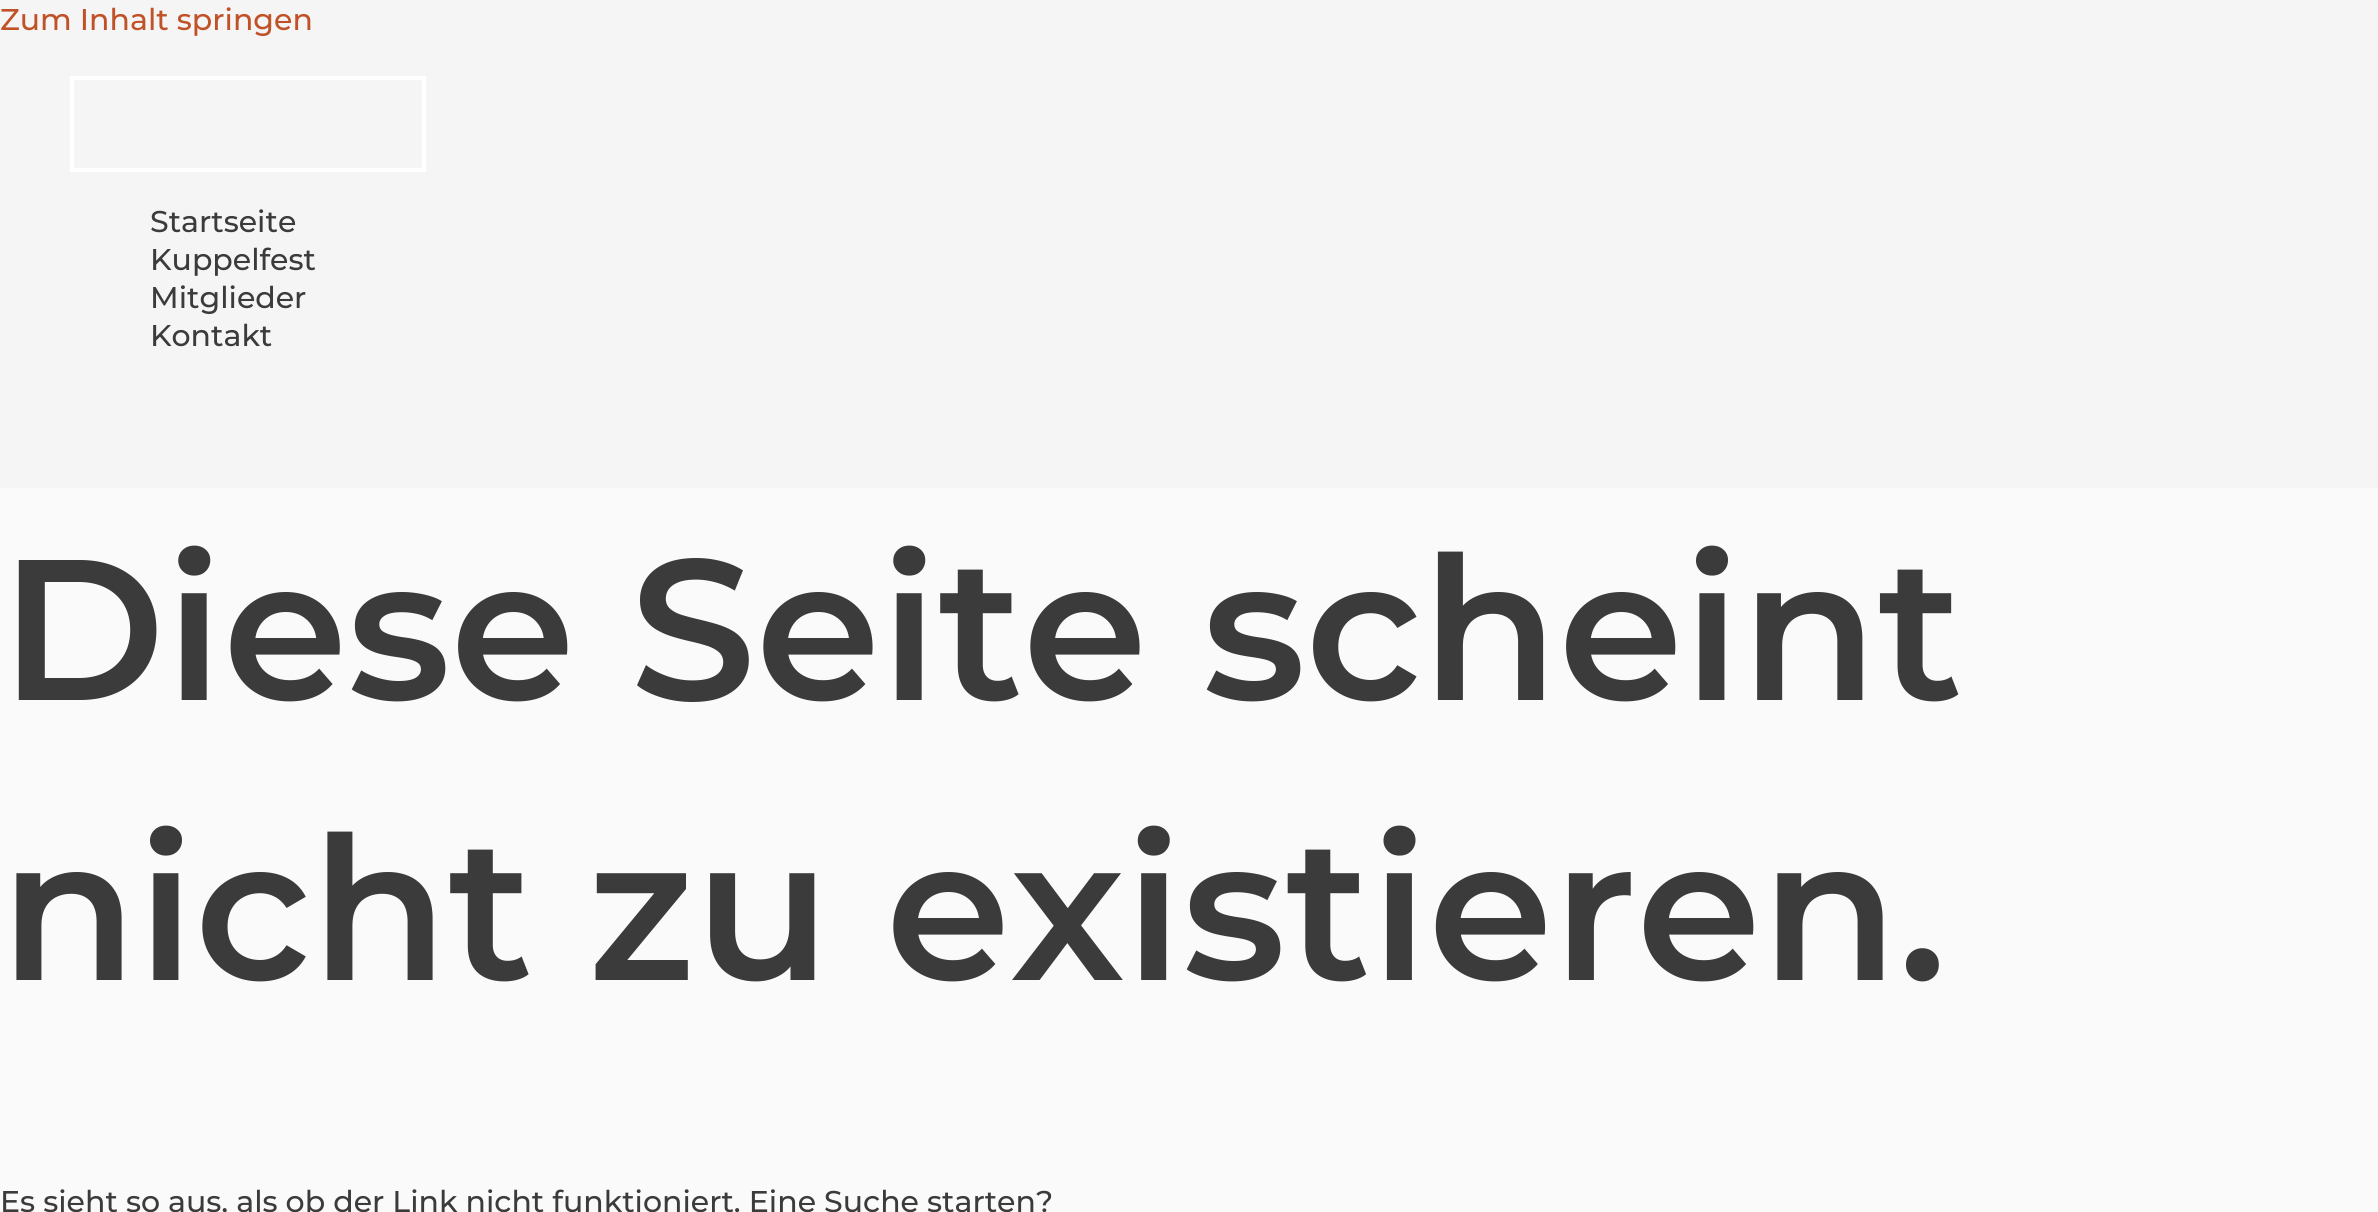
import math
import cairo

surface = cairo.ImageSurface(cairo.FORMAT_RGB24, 2378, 1212)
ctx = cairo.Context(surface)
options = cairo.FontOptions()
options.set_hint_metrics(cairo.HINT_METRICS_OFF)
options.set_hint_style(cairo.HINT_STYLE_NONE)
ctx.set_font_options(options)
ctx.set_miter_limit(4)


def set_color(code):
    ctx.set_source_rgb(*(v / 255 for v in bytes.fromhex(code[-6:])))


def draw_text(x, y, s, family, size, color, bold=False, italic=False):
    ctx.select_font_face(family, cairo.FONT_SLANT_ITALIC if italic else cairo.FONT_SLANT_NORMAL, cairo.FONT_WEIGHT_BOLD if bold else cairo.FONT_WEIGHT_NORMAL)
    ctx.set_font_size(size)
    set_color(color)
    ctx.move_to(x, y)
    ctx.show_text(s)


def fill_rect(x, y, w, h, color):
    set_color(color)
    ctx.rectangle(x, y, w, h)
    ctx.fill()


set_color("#f5f5f5")
ctx.paint()
draw_text(0, 30, "Zum Inhalt springen", "Montserrat Medium", 30, "#c15228")
ctx.rectangle(72, 78, 352, 92)
set_color("#ffffff")
ctx.set_line_width(4)
ctx.stroke()
draw_text(150, 232, "Startseite", "Montserrat Medium", 30, "#3b3b3b")
draw_text(150, 270, "Kuppelfest", "Montserrat Medium", 30, "#3b3b3b")
draw_text(150, 308, "Mitglieder", "Montserrat Medium", 30, "#3b3b3b")
draw_text(150, 346, "Kontakt", "Montserrat Medium", 30, "#3b3b3b")
fill_rect(0, 488, 2378, 724, "#fafafa")
draw_text(0, 700, "Diese Seite scheint", "Montserrat SemiBold", 200, "#3b3b3b")
draw_text(0, 980, "nicht zu existieren.", "Montserrat SemiBold", 200, "#3b3b3b")
draw_text(0, 1212, "Es sieht so aus, als ob der Link nicht funktioniert. Eine Suche starten?", "Montserrat Medium", 30, "#3b3b3b")
surface.write_to_png("output.png")
